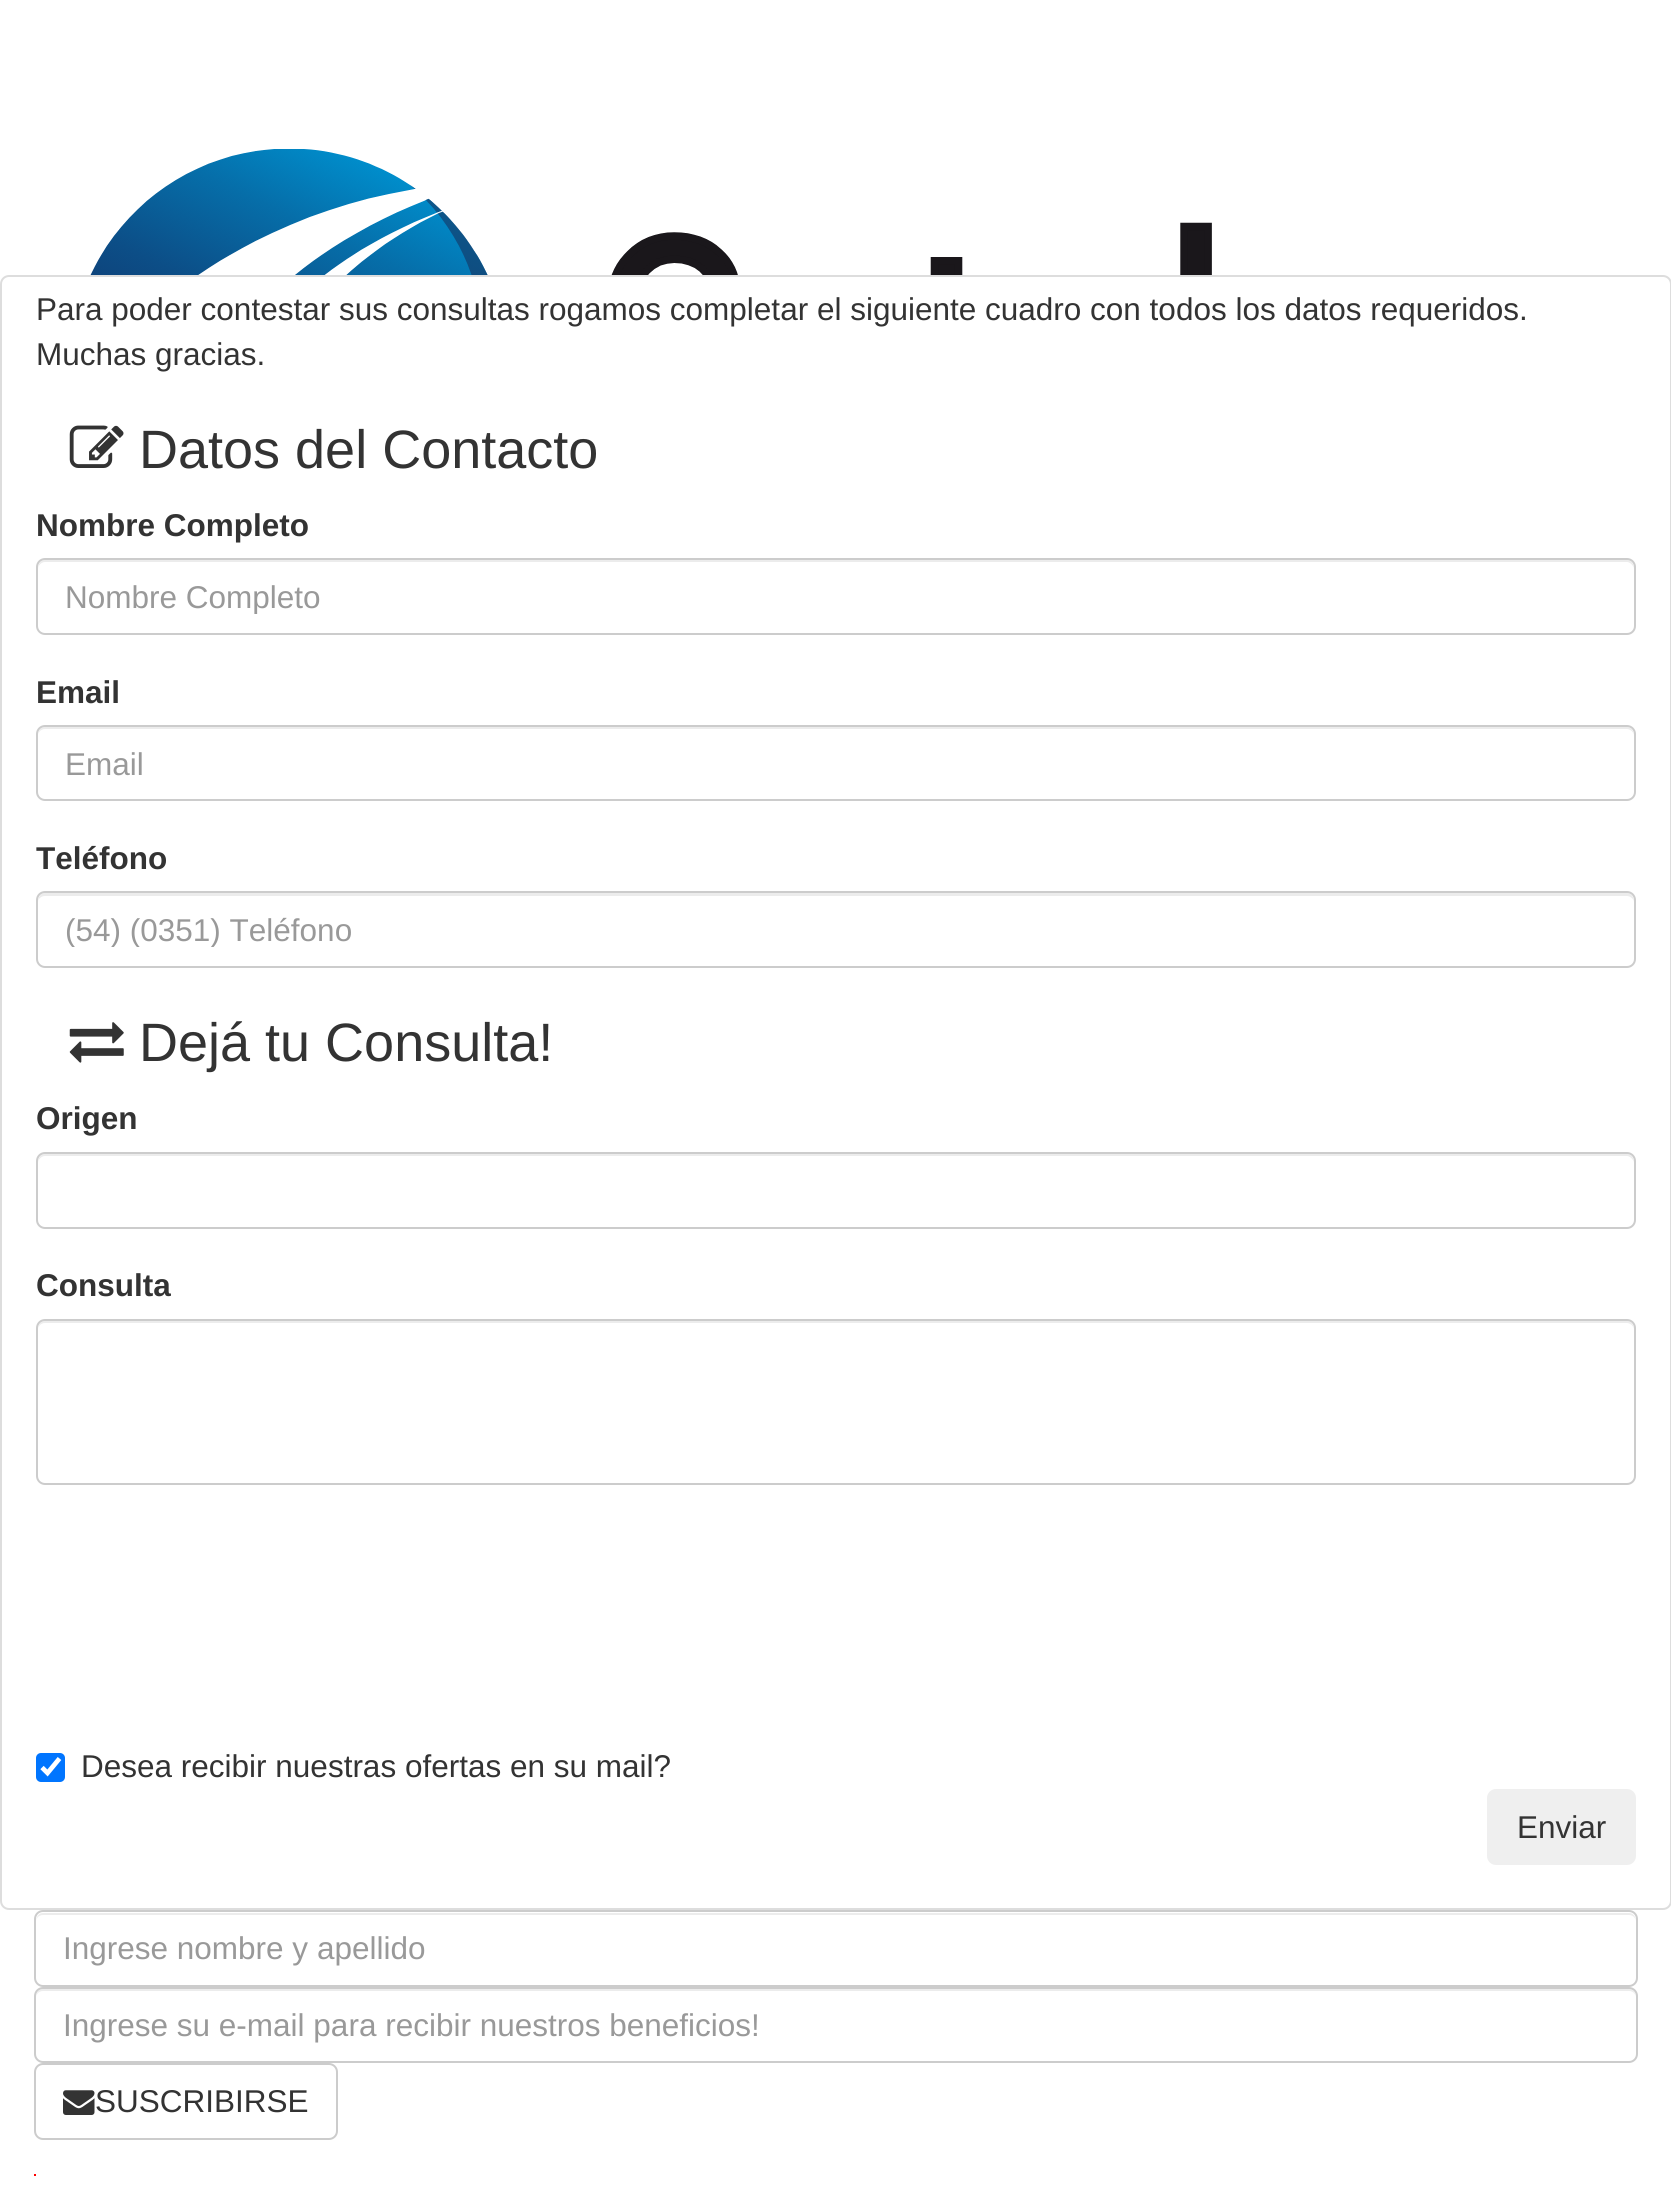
import math
import cairo

surface = cairo.ImageSurface(cairo.FORMAT_RGB24, 1671, 2185)
ctx = cairo.Context(surface)
options = cairo.FontOptions()
options.set_hint_metrics(cairo.HINT_METRICS_OFF)
options.set_hint_style(cairo.HINT_STYLE_NONE)
ctx.set_font_options(options)
ctx.set_miter_limit(4)


def set_color(code):
    ctx.set_source_rgb(*(v / 255 for v in bytes.fromhex(code[-6:])))


def draw_text(x, y, s, family, size, color, bold=False, italic=False):
    ctx.select_font_face(family, cairo.FONT_SLANT_ITALIC if italic else cairo.FONT_SLANT_NORMAL, cairo.FONT_WEIGHT_BOLD if bold else cairo.FONT_WEIGHT_NORMAL)
    ctx.set_font_size(size)
    set_color(color)
    ctx.move_to(x, y)
    ctx.show_text(s)


def fill_rect(x, y, w, h, color):
    set_color(color)
    ctx.rectangle(x, y, w, h)
    ctx.fill()


def rounded_rect(x, y, w, h, r):
    ctx.new_sub_path()
    for i, (u, v) in enumerate([(x + w - r, y + h - r), (x + r, y + h - r), (x + r, y + r), (x + w - r, y + r)]):
        ctx.arc(u, v, r, i * math.pi / 2, (i + 1) * math.pi / 2)
    ctx.close_path()


def draw_image(path, x, y, w, h):
    ctx.save()
    ctx.set_source_surface(cairo.ImageSurface.create_from_png(path), x, y)
    ctx.rectangle(x, y, w, h)
    ctx.fill()
    ctx.restore()


set_color("#ffffff")
ctx.paint()
draw_image("assets/img1.png", 90, 149, 1130, 126)
rounded_rect(1, 276, 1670, 1633, 8)
set_color("#dddddd")
ctx.stroke()
draw_text(36, 320, "Para poder contestar sus consultas rogamos completar el siguiente cuadro con todos los datos requeridos.", "Liberation Sans", 31.5, "#333333")
draw_text(36, 365, "Muchas gracias.", "Liberation Sans", 31.5, "#333333")
draw_image("assets/img2.png", 69, 425, 55, 43)
draw_text(139, 468, "Datos del Contacto", "Liberation Sans", 54, "#333333")
draw_text(36, 536, "Nombre Completo", "Liberation Sans", 31.5, "#333333", bold=True)
set_color("#ececec")
ctx.new_path()
ctx.move_to(45, 562)
ctx.line_to(1627, 562)
ctx.curve_to(1630, 562, 1634, 566, 1634, 569)
ctx.curve_to(1634, 565, 1632, 560, 1627, 560)
ctx.line_to(45, 560)
ctx.curve_to(40, 560, 38, 565, 38, 569)
ctx.curve_to(38, 566, 41, 562, 45, 562)
ctx.close_path()
ctx.fill()
rounded_rect(37, 559, 1598, 75, 8)
set_color("#cccccc")
ctx.stroke()
ctx.save()
ctx.rectangle(65, 578, 1542, 36)
ctx.clip()
draw_text(65, 608, "Nombre Completo", "Liberation Sans", 31.5, "#999999")
ctx.restore()
draw_text(36, 703, "Email", "Liberation Sans", 31.5, "#333333", bold=True)
set_color("#ececec")
ctx.new_path()
ctx.move_to(45, 729)
ctx.line_to(1627, 729)
ctx.curve_to(1630, 729, 1634, 732, 1634, 736)
ctx.curve_to(1634, 732, 1632, 727, 1627, 727)
ctx.line_to(45, 727)
ctx.curve_to(40, 727, 38, 732, 38, 736)
ctx.curve_to(38, 732, 41, 729, 45, 729)
ctx.close_path()
ctx.fill()
rounded_rect(37, 726, 1598, 74, 8)
set_color("#cccccc")
ctx.stroke()
draw_text(65, 775, "Email", "Liberation Sans", 31.5, "#999999")
draw_text(36, 869, "Teléfono", "Liberation Sans", 31.5, "#333333", bold=True)
set_color("#ececec")
ctx.new_path()
ctx.move_to(45, 896)
ctx.line_to(1627, 896)
ctx.curve_to(1630, 896, 1634, 899, 1634, 902)
ctx.curve_to(1634, 898, 1632, 893, 1627, 893)
ctx.line_to(45, 893)
ctx.curve_to(40, 893, 38, 898, 38, 902)
ctx.curve_to(38, 899, 41, 896, 45, 896)
ctx.close_path()
ctx.fill()
rounded_rect(37, 892, 1598, 75, 8)
set_color("#cccccc")
ctx.stroke()
ctx.save()
ctx.rectangle(65, 911, 1542, 36)
ctx.clip()
draw_text(65, 941, "(54) (0351) Teléfono", "Liberation Sans", 31.5, "#999999")
ctx.restore()
draw_image("assets/img3.png", 69, 1022, 55, 41)
draw_text(139, 1061, "Dejá tu Consulta!", "Liberation Sans", 54, "#333333")
draw_text(36, 1129, "Origen", "Liberation Sans", 31.5, "#333333", bold=True)
set_color("#ececec")
ctx.new_path()
ctx.move_to(45, 1156)
ctx.line_to(1627, 1156)
ctx.curve_to(1630, 1156, 1634, 1160, 1634, 1163)
ctx.curve_to(1634, 1159, 1632, 1154, 1627, 1154)
ctx.line_to(45, 1154)
ctx.curve_to(40, 1154, 38, 1159, 38, 1163)
ctx.curve_to(38, 1160, 41, 1156, 45, 1156)
ctx.close_path()
ctx.fill()
rounded_rect(37, 1153, 1598, 75, 8)
set_color("#cccccc")
ctx.stroke()
draw_text(36, 1296, "Consulta", "Liberation Sans", 31.5, "#333333", bold=True)
set_color("#ececec")
ctx.new_path()
ctx.move_to(45, 1323)
ctx.line_to(1627, 1323)
ctx.curve_to(1630, 1323, 1634, 1326, 1634, 1330)
ctx.curve_to(1634, 1326, 1632, 1321, 1627, 1321)
ctx.line_to(45, 1321)
ctx.curve_to(40, 1321, 38, 1326, 38, 1330)
ctx.curve_to(38, 1326, 41, 1323, 45, 1323)
ctx.close_path()
ctx.fill()
rounded_rect(37, 1320, 1598, 164, 8)
set_color("#cccccc")
ctx.stroke()
set_color("#0075ff")
rounded_rect(36, 1753, 29, 29, 5)
ctx.fill()
ctx.new_path()
ctx.move_to(42, 1767.5)
ctx.line_to(47.5, 1773)
ctx.line_to(59.5, 1758.5)
set_color("#ffffff")
ctx.set_line_width(4.7)
ctx.stroke()
draw_text(81, 1777, "Desea recibir nuestras ofertas en su mail?", "Liberation Sans", 31.5, "#333333")
set_color("#efefef")
rounded_rect(1487, 1789, 149, 76, 9)
ctx.fill()
draw_text(1517, 1838, "Enviar", "Liberation Sans", 31.5, "#333333")
set_color("#ececec")
ctx.new_path()
ctx.move_to(43, 1915)
ctx.line_to(1629, 1915)
ctx.curve_to(1633, 1915, 1636, 1918, 1636, 1922)
ctx.curve_to(1636, 1918, 1634, 1913, 1629, 1913)
ctx.line_to(43, 1913)
ctx.curve_to(38, 1913, 36, 1918, 36, 1922)
ctx.curve_to(36, 1918, 39, 1915, 43, 1915)
ctx.close_path()
ctx.fill()
rounded_rect(35, 1911, 1602, 75, 8)
set_color("#cccccc")
ctx.set_line_width(2)
ctx.stroke()
draw_text(63, 1959, "Ingrese nombre y apellido", "Liberation Sans", 31.5, "#999999")
set_color("#ececec")
ctx.new_path()
ctx.move_to(43, 1991)
ctx.line_to(1629, 1991)
ctx.curve_to(1633, 1991, 1636, 1994, 1636, 1998)
ctx.curve_to(1636, 1994, 1634, 1989, 1629, 1989)
ctx.line_to(43, 1989)
ctx.curve_to(38, 1989, 36, 1994, 36, 1998)
ctx.curve_to(36, 1994, 39, 1991, 43, 1991)
ctx.close_path()
ctx.fill()
rounded_rect(35, 1988, 1602, 74, 8)
set_color("#cccccc")
ctx.stroke()
draw_text(63, 2036, "Ingrese su e-mail para recibir nuestros beneficios!", "Liberation Sans", 31.5, "#999999")
rounded_rect(35, 2064, 302, 75, 8)
set_color("#cccccc")
ctx.stroke()
draw_image("assets/img4.png", 63, 2090, 32, 25)
draw_text(95, 2112, "SUSCRIBIRSE", "Liberation Sans", 31.5, "#333333")
fill_rect(34, 2174, 2, 2, "#ff0000")
surface.write_to_png("output.png")
